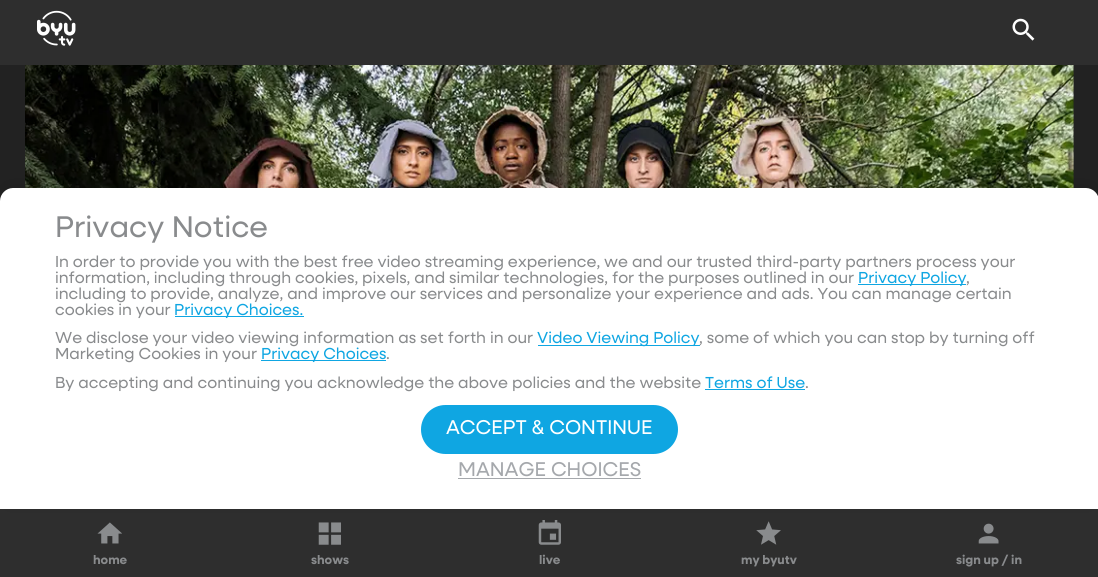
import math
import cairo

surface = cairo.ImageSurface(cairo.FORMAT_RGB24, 1098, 577)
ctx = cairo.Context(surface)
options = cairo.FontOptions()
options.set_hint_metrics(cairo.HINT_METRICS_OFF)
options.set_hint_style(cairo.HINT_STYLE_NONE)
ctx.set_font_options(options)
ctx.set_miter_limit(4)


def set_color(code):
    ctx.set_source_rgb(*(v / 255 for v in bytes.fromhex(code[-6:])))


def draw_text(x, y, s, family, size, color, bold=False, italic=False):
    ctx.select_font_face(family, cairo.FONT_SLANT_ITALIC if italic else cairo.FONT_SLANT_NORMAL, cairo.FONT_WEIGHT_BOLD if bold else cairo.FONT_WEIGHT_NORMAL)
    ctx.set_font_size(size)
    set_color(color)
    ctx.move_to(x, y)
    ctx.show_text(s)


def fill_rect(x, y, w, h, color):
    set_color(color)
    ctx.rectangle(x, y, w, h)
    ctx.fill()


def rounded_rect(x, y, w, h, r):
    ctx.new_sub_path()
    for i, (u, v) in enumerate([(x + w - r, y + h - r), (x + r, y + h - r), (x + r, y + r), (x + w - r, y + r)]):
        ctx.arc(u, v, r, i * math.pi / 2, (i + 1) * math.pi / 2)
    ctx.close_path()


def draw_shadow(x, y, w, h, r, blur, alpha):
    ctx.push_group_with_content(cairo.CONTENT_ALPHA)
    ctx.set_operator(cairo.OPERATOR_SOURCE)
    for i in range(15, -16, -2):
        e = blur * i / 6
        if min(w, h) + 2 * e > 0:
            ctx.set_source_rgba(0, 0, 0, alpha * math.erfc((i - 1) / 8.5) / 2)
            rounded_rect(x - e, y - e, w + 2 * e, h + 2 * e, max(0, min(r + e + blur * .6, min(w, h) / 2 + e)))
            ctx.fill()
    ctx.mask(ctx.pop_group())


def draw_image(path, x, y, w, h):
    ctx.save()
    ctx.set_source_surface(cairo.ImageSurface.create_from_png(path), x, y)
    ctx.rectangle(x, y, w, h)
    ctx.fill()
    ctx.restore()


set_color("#222222")
ctx.paint()
fill_rect(0, 0, 1098, 65, "#2e2e2e")
draw_image("assets/img1.png", 37, 10, 39, 36)
draw_image("assets/img2.png", 1012, 18, 23, 23)
draw_image("assets/img3.png", 25, 65, 1049, 123)
fill_rect(0, 509, 1098, 68, "#2e2e2e")
draw_image("assets/img4.png", 97, 522, 25, 22)
draw_image("assets/img5.png", 318, 522, 23, 23)
draw_image("assets/img6.png", 538, 520, 23, 25)
draw_image("assets/img7.png", 756, 521, 25, 24)
draw_image("assets/img8.png", 978, 523, 21, 21)
set_color("#000000")
draw_shadow(0, 185, 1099, 321, 13, 6, 0.1)
set_color("#ffffff")
ctx.new_path()
ctx.move_to(13, 188)
ctx.line_to(1086, 188)
ctx.curve_to(1093, 188, 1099, 194, 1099, 201)
ctx.line_to(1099, 509)
ctx.line_to(0, 509)
ctx.line_to(0, 201)
ctx.curve_to(0, 194, 6, 188, 13, 188)
ctx.close_path()
ctx.fill()
draw_text(55, 237, "Privacy Notice", "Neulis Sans", 30, "#898b8d")
draw_text(55, 267, "In order to provide you with the best free video streaming experience, we and our trusted third-party partners process your", "Neulis Sans", 16, "#898b8d")
draw_text(55, 283, "information, including through cookies, pixels, and similar technologies, for the purposes outlined in our", "Neulis Sans", 16, "#898b8d")
fill_rect(858, 284, 108, 1, "#0fa6e2")
draw_text(858, 283, "Privacy Policy", "Neulis Sans", 16, "#0fa6e2")
draw_text(966, 283, ",", "Neulis Sans", 16, "#898b8d")
draw_text(55, 299, "including to provide, analyze, and improve our services and personalize your experience and ads. You can manage certain", "Neulis Sans", 16, "#898b8d")
draw_text(55, 315, "cookies in your", "Neulis Sans", 16, "#898b8d")
fill_rect(175, 316, 129, 1, "#0fa6e2")
draw_text(174, 315, "Privacy Choices.", "Neulis Sans", 16, "#0fa6e2")
draw_text(55, 343, "We disclose your video viewing information as set forth in our", "Neulis Sans", 16, "#898b8d")
fill_rect(538, 345, 162, 1, "#0fa6e2")
draw_text(537, 343, "Video Viewing Policy", "Neulis Sans", 16, "#0fa6e2")
draw_text(699, 343, ", some of which you can stop by turning off", "Neulis Sans", 16, "#898b8d")
draw_text(55, 359, "Marketing Cookies in your", "Neulis Sans", 16, "#898b8d")
fill_rect(261, 360, 125, 1, "#0fa6e2")
draw_text(261, 359, "Privacy Choices", "Neulis Sans", 16, "#0fa6e2")
draw_text(386, 359, ".", "Neulis Sans", 16, "#898b8d")
draw_text(55, 388, "By accepting and continuing you acknowledge the above policies and the website", "Neulis Sans", 16, "#898b8d")
draw_text(705, 388, "Terms of Use", "Neulis Sans", 16, "#0fa6e2")
fill_rect(705, 389, 100, 1, "#0fa6e2")
draw_text(805, 388, ".", "Neulis Sans", 16, "#898b8d")
set_color("#0fa6e2")
rounded_rect(421, 405, 257, 49, 24.5)
ctx.fill()
draw_text(446, 434, "ACCEPT & CONTINUE", "Neulis Sans", 20, "#ffffff")
draw_text(458, 476, "MANAGE CHOICES", "Neulis Sans", 20, "#a5a8ac")
fill_rect(458, 478, 183, 1, "#a5a8ac")
draw_text(93, 564, "home", "Neulis Sans", 12.5, "#898b8d", bold=True)
draw_text(311, 564, "shows", "Neulis Sans", 12.5, "#898b8d", bold=True)
draw_text(539, 564, "live", "Neulis Sans", 12.5, "#898b8d", bold=True)
draw_text(741, 564, "my byutv", "Neulis Sans", 12.5, "#898b8d", bold=True)
draw_text(956, 564, "sign up / in", "Neulis Sans", 12.5, "#898b8d", bold=True)
surface.write_to_png("output.png")
